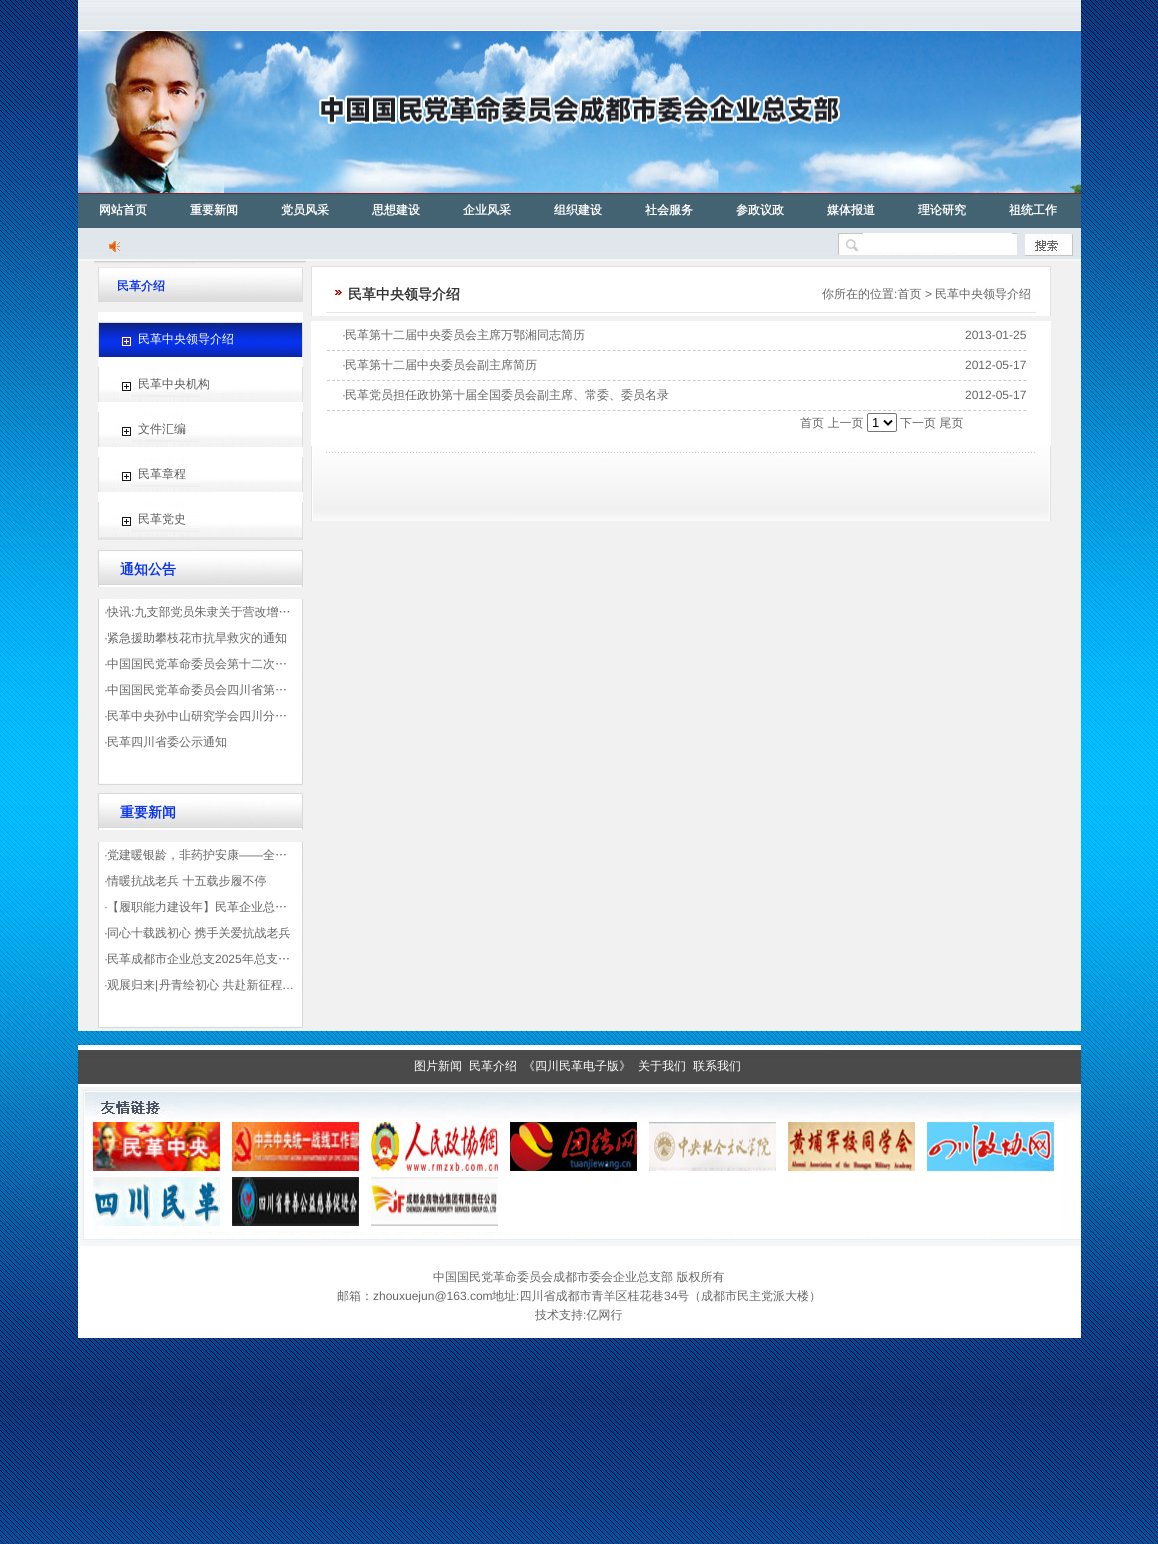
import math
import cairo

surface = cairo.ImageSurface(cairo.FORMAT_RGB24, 1158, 1544)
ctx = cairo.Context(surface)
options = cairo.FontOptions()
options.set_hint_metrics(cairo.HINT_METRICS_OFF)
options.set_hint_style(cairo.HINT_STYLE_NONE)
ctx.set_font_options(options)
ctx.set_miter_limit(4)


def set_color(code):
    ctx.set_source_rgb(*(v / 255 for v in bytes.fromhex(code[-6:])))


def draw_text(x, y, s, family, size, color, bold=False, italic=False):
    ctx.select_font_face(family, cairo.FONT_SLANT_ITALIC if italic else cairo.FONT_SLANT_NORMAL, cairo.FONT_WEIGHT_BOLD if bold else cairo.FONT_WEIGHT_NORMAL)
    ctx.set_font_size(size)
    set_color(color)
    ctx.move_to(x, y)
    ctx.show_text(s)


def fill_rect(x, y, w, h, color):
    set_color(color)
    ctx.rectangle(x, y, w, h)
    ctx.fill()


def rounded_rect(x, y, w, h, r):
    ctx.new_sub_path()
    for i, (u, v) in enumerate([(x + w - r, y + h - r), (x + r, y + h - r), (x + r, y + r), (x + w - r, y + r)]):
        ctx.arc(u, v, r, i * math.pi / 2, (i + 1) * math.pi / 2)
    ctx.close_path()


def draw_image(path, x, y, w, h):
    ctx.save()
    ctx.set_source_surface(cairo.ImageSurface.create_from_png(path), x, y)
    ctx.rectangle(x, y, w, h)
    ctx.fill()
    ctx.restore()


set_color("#ffffff")
ctx.paint()
draw_image("assets/img1.png", 0, 0, 1158, 1544)
draw_image("assets/img2.png", 78, 0, 1003, 31)
draw_image("assets/img3.png", 78, 31, 1003, 162)
draw_image("assets/img4.png", 78, 193, 1003, 35)
draw_text(99, 214, "网站首页", "WenQuanYi Zen Hei", 12, "#ffffff", bold=True)
draw_text(190, 214, "重要新闻", "WenQuanYi Zen Hei", 12, "#ffffff", bold=True)
draw_text(281, 214, "党员风采", "WenQuanYi Zen Hei", 12, "#ffffff", bold=True)
draw_text(372, 214, "思想建设", "WenQuanYi Zen Hei", 12, "#ffffff", bold=True)
draw_text(463, 214, "企业风采", "WenQuanYi Zen Hei", 12, "#ffffff", bold=True)
draw_text(554, 214, "组织建设", "WenQuanYi Zen Hei", 12, "#ffffff", bold=True)
draw_text(645, 214, "社会服务", "WenQuanYi Zen Hei", 12, "#ffffff", bold=True)
draw_text(736, 214, "参政议政", "WenQuanYi Zen Hei", 12, "#ffffff", bold=True)
draw_text(827, 214, "媒体报道", "WenQuanYi Zen Hei", 12, "#ffffff", bold=True)
draw_text(918, 214, "理论研究", "WenQuanYi Zen Hei", 12, "#ffffff", bold=True)
draw_text(1009, 214, "祖统工作", "WenQuanYi Zen Hei", 12, "#ffffff", bold=True)
draw_image("assets/img5.png", 78, 228, 1003, 33)
draw_image("assets/img6.png", 107, 241, 17, 13)
draw_image("assets/img7.png", 838, 233, 180, 23)
fill_rect(863, 233, 149, 17, "#ffffff")
draw_image("assets/img8.png", 1025, 234, 48, 22)
fill_rect(78, 261, 1003, 770, "#f1f1f1")
draw_image("assets/img9.png", 94, 261, 212, 41)
draw_text(117, 290, "民革介绍", "WenQuanYi Zen Hei", 12, "#0632f0", bold=True)
fill_rect(98, 312, 205, 190, "#ffffff")
draw_image("assets/img10.png", 94, 322, 212, 35)
draw_text(138, 343, "民革中央领导介绍", "WenQuanYi Zen Hei Medium", 12, "#ffffff")
draw_image("assets/img11.png", 98, 367, 205, 35)
draw_text(138, 388, "民革中央机构", "WenQuanYi Zen Hei Medium", 12, "#5a5a5a")
draw_image("assets/img11.png", 98, 412, 205, 35)
draw_text(138, 433, "文件汇编", "WenQuanYi Zen Hei Medium", 12, "#5a5a5a")
draw_image("assets/img11.png", 98, 457, 205, 35)
draw_text(138, 478, "民革章程", "WenQuanYi Zen Hei Medium", 12, "#5a5a5a")
draw_image("assets/img11.png", 98, 502, 205, 35)
draw_text(138, 523, "民革党史", "WenQuanYi Zen Hei Medium", 12, "#5a5a5a")
draw_image("assets/img12.png", 98, 537, 205, 3)
draw_image("assets/img13.png", 97, 547, 206, 40)
draw_text(120, 574, "通知公告", "WenQuanYi Zen Hei", 14, "#0632f0", bold=True)
draw_image("assets/img14.png", 98, 599, 205, 178)
draw_text(107, 616, "快讯 九支部党员朱隶关于营改增…", "WenQuanYi Zen Hei Medium", 12, "#666666")
draw_text(104, 616, "·", "Liberation Sans", 12, "#666666")
draw_text(131, 616, ":", "Liberation Sans", 12, "#666666")
draw_text(104, 642, "·", "Liberation Sans", 12, "#666666")
draw_text(107, 642, "紧急援助攀枝花市抗旱救灾的通知", "WenQuanYi Zen Hei Medium", 12, "#666666")
draw_text(104, 668, "·", "Liberation Sans", 12, "#666666")
draw_text(107, 668, "中国国民党革命委员会第十二次…", "WenQuanYi Zen Hei Medium", 12, "#666666")
draw_text(104, 694, "·", "Liberation Sans", 12, "#666666")
draw_text(107, 694, "中国国民党革命委员会四川省第…", "WenQuanYi Zen Hei Medium", 12, "#666666")
draw_text(104, 720, "·", "Liberation Sans", 12, "#666666")
draw_text(107, 720, "民革中央孙中山研究学会四川分…", "WenQuanYi Zen Hei Medium", 12, "#666666")
draw_text(104, 746, "·", "Liberation Sans", 12, "#666666")
draw_text(107, 746, "民革四川省委公示通知", "WenQuanYi Zen Hei Medium", 12, "#666666")
draw_image("assets/img15.png", 98, 777, 207, 10)
draw_image("assets/img13.png", 97, 790, 206, 40)
draw_text(120, 817, "重要新闻", "WenQuanYi Zen Hei", 14, "#0632f0", bold=True)
draw_image("assets/img14.png", 98, 842, 205, 178)
draw_text(104, 859, "·", "Liberation Sans", 12, "#666666")
draw_text(107, 859, "党建暖银龄，非药护安康", "WenQuanYi Zen Hei Medium", 12, "#666666")
draw_text(239, 859, "——", "Liberation Sans", 12, "#666666")
draw_text(263, 859, "全…", "WenQuanYi Zen Hei Medium", 12, "#666666")
draw_text(104, 885, "·", "Liberation Sans", 12, "#666666")
draw_text(107, 885, "情暖抗战老兵 十五载步履不停", "WenQuanYi Zen Hei Medium", 12, "#666666")
draw_text(104, 911, "·", "Liberation Sans", 12, "#666666")
draw_text(107, 911, "【履职能力建设年】民革企业总…", "WenQuanYi Zen Hei Medium", 12, "#666666")
draw_text(104, 937, "·", "Liberation Sans", 12, "#666666")
draw_text(107, 937, "同心十载践初心 携手关爱抗战老兵", "WenQuanYi Zen Hei Medium", 12, "#666666")
draw_text(104, 963, "·", "Liberation Sans", 12, "#666666")
draw_text(107, 963, "民革成都市企业总支", "WenQuanYi Zen Hei Medium", 12, "#666666")
draw_text(215, 963, "2025", "Liberation Sans", 12, "#666666")
draw_text(242, 963, "年总支…", "WenQuanYi Zen Hei Medium", 12, "#666666")
draw_text(104, 989, "·", "Liberation Sans", 12, "#666666")
draw_text(107, 989, "观展归来", "WenQuanYi Zen Hei Medium", 12, "#666666")
draw_text(155, 989, "|", "Liberation Sans", 12, "#666666")
draw_text(159, 989, "丹青绘初心 共赴新征程", "WenQuanYi Zen Hei Medium", 12, "#666666")
draw_text(282, 989, "…", "Liberation Sans", 12, "#666666")
draw_image("assets/img15.png", 98, 1020, 207, 10)
draw_image("assets/img16.png", 311, 266, 740, 50)
draw_text(348, 299, "民革中央领导介绍", "WenQuanYi Zen Hei", 14, "#333333", bold=True)
draw_text(822, 298, "你所在的位置 首页", "WenQuanYi Zen Hei Medium", 12, "#666666")
draw_text(935, 298, "民革中央领导介绍", "WenQuanYi Zen Hei Medium", 12, "#666666")
draw_text(894, 298, ":", "Liberation Sans", 12, "#666666")
draw_text(925, 298, ">", "Liberation Sans", 12, "#666666")
fill_rect(311, 321, 740, 125, "#ffffff")
ctx.new_path()
ctx.move_to(327, 350.5)
ctx.line_to(1027, 350.5)
set_color("#cccccc")
ctx.set_line_width(1)
ctx.set_dash([3, 2.01])
ctx.stroke()
draw_text(342, 339, "·", "Liberation Sans", 12, "#666666")
draw_text(345, 339, "民革第十二届中央委员会主席万鄂湘同志简历", "WenQuanYi Zen Hei Medium", 12, "#666666")
draw_text(965, 339, "2013-01-25", "Liberation Sans", 12, "#666666")
ctx.new_path()
ctx.move_to(327, 380.5)
ctx.line_to(1027, 380.5)
set_color("#cccccc")
ctx.stroke()
draw_text(342, 369, "·", "Liberation Sans", 12, "#666666")
draw_text(345, 369, "民革第十二届中央委员会副主席简历", "WenQuanYi Zen Hei Medium", 12, "#666666")
draw_text(965, 369, "2012-05-17", "Liberation Sans", 12, "#666666")
ctx.new_path()
ctx.move_to(327, 410.5)
ctx.line_to(1027, 410.5)
set_color("#cccccc")
ctx.stroke()
draw_text(342, 399, "·", "Liberation Sans", 12, "#666666")
draw_text(345, 399, "民革党员担任政协第十届全国委员会副主席、常委、委员名录", "WenQuanYi Zen Hei Medium", 12, "#666666")
draw_text(965, 399, "2012-05-17", "Liberation Sans", 12, "#666666")
draw_text(800, 427, "首页 上一页", "WenQuanYi Zen Hei Medium", 12, "#666666")
rounded_rect(867.5, 413.5, 29, 18, 1.5)
set_color("#767676")
ctx.set_dash([])
ctx.stroke()
ctx.new_path()
ctx.move_to(884, 420.5)
ctx.line_to(888, 424.5)
ctx.line_to(892, 420.5)
set_color("#000000")
ctx.set_line_width(2)
ctx.stroke()
draw_text(872, 427, "1", "Liberation Sans", 13, "#000000")
draw_text(900, 427, "下一页 尾页", "WenQuanYi Zen Hei Medium", 12, "#666666")
draw_image("assets/img17.png", 311, 446, 740, 75)
draw_image("assets/img18.png", 78, 1045, 1003, 43)
draw_text(414, 1070, "图片新闻", "WenQuanYi Zen Hei Medium", 12, "#ffffff")
draw_text(469, 1070, "民革介绍", "WenQuanYi Zen Hei Medium", 12, "#ffffff")
draw_text(523, 1070, "《四川民革电子版》", "WenQuanYi Zen Hei Medium", 12, "#ffffff")
draw_text(638, 1070, "关于我们", "WenQuanYi Zen Hei Medium", 12, "#ffffff")
draw_text(693, 1070, "联系我们", "WenQuanYi Zen Hei Medium", 12, "#ffffff")
draw_image("assets/img19.png", 78, 1088, 1003, 34)
draw_image("assets/img20.png", 78, 1122, 1003, 110)
draw_image("assets/img21.png", 93, 1122, 127, 49)
draw_image("assets/img22.png", 232, 1122, 127, 49)
draw_image("assets/img23.png", 371, 1122, 127, 49)
draw_image("assets/img24.png", 510, 1122, 127, 49)
draw_image("assets/img25.png", 649, 1122, 127, 49)
draw_image("assets/img26.png", 788, 1122, 127, 49)
draw_image("assets/img27.png", 927, 1122, 127, 49)
draw_image("assets/img28.png", 93, 1177, 127, 49)
draw_image("assets/img29.png", 232, 1177, 127, 49)
draw_image("assets/img30.png", 371, 1177, 127, 49)
draw_image("assets/img31.png", 78, 1232, 1003, 14)
fill_rect(78, 1246, 1003, 92, "#ffffff")
draw_text(433, 1281, "中国国民党革命委员会成都市委会企业总支部 版权所有", "WenQuanYi Zen Hei Medium", 12, "#666666")
draw_text(337, 1300, "邮箱：", "WenQuanYi Zen Hei Medium", 12, "#666666")
draw_text(373, 1300, "zhouxuejun@163.com", "Liberation Sans", 12, "#666666")
draw_text(492, 1300, "地址 四川省成都市青羊区桂花巷", "WenQuanYi Zen Hei Medium", 12, "#666666")
draw_text(664, 1300, "34", "Liberation Sans", 12, "#666666")
draw_text(677, 1300, "号（成都市民主党派大楼）", "WenQuanYi Zen Hei Medium", 12, "#666666")
draw_text(516, 1300, ":", "Liberation Sans", 12, "#666666")
draw_text(535, 1319, "技术支持 亿网行", "WenQuanYi Zen Hei Medium", 12, "#666666")
draw_text(583, 1319, ":", "Liberation Sans", 12, "#666666")
surface.write_to_png("output.png")
